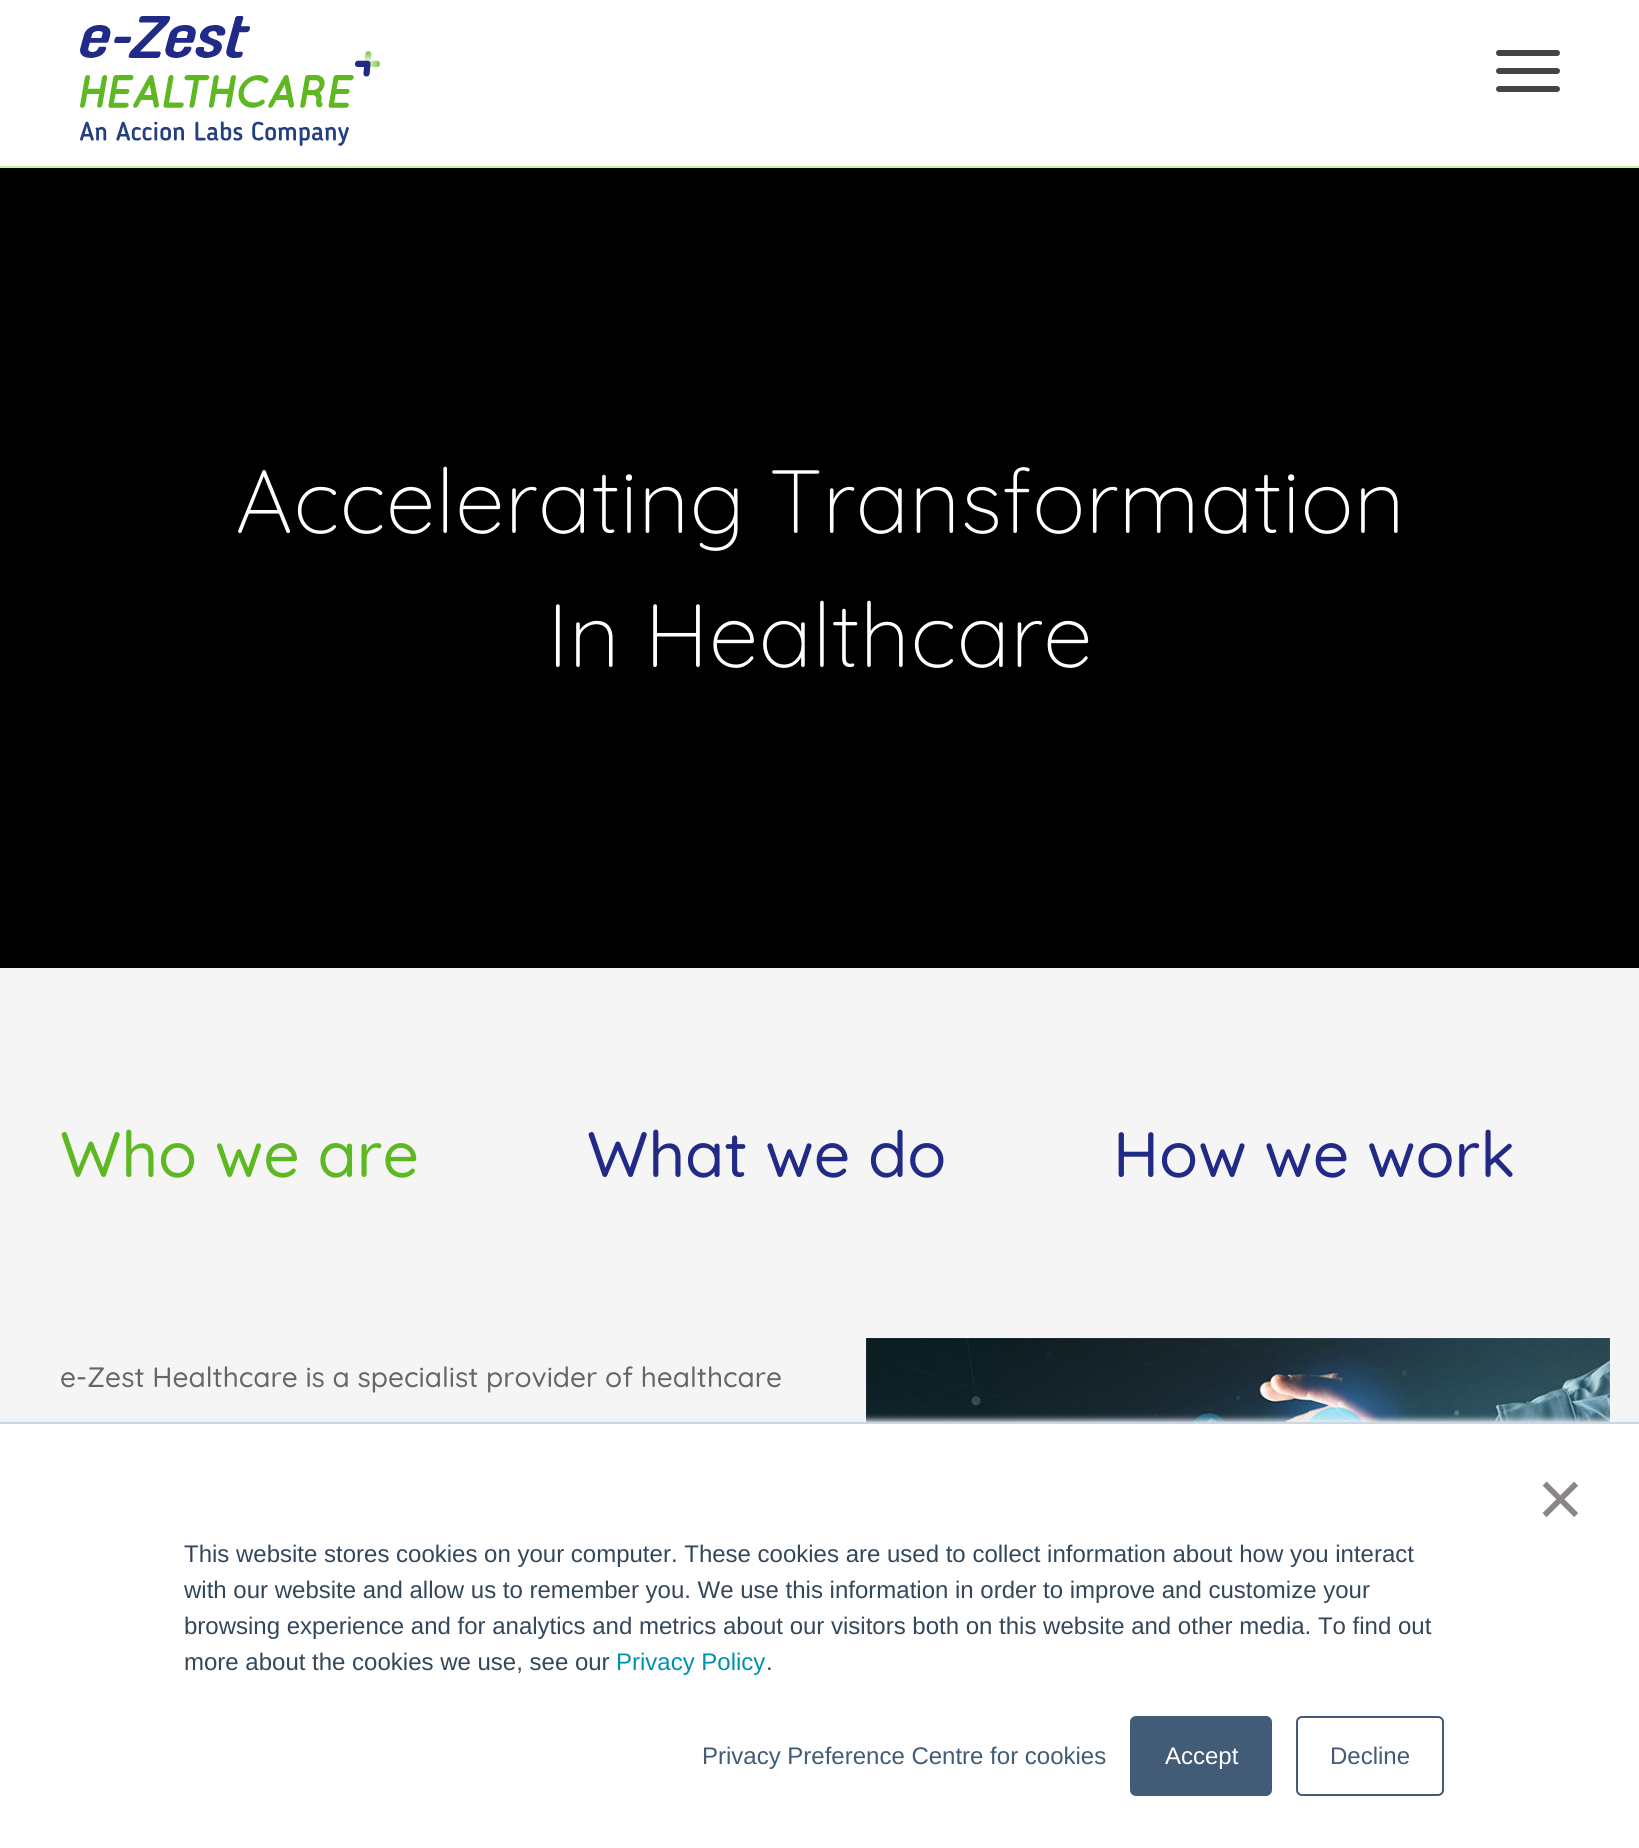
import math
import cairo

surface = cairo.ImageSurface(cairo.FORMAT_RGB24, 1639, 1848)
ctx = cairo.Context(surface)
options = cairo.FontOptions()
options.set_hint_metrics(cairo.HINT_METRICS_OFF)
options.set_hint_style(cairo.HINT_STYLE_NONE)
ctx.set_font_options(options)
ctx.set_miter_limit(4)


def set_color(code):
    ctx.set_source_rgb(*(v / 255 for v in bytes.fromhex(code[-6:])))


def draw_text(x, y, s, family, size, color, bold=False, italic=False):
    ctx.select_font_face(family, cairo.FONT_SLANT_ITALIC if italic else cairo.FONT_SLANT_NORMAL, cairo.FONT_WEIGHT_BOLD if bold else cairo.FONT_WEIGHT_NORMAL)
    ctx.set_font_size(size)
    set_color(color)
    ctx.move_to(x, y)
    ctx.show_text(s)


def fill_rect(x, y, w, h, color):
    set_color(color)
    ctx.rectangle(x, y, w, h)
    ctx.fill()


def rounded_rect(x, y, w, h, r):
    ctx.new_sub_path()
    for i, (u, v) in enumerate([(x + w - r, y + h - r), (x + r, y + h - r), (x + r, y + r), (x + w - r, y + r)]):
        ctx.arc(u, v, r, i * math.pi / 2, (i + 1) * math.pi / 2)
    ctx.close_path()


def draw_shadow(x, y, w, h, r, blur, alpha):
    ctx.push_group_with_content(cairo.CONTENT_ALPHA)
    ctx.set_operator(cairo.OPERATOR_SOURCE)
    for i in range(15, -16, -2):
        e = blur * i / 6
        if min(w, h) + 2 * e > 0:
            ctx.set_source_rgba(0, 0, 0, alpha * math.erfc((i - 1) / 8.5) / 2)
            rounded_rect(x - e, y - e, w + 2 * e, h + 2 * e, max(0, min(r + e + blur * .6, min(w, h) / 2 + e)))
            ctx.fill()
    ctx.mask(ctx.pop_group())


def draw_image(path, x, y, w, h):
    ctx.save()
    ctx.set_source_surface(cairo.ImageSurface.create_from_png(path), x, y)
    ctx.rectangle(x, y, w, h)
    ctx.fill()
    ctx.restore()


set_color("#f5f5f5")
ctx.paint()
fill_rect(0, 0, 1639, 166, "#ffffff")
fill_rect(0, 166, 1639, 2, "#c5f1a7")
draw_image("assets/img1.png", 80, 16, 300, 130)
set_color("#444444")
rounded_rect(1496, 50, 64, 6, 3)
ctx.fill()
rounded_rect(1496, 68, 64, 6, 3)
ctx.fill()
rounded_rect(1496, 86, 64, 6, 3)
ctx.fill()
fill_rect(0, 168, 1639, 800, "#000000")
draw_text(235, 533, "Accelerating Transformation", "Quicksand Light", 89.6, "#ffffff")
draw_text(547, 667, "In Healthcare", "Quicksand Light", 89.6, "#ffffff")
draw_text(60, 1177, "Who we are", "Quicksand Medium", 64, "#5eb822")
draw_text(587, 1177, "What we do", "Quicksand Medium", 64, "#222a88")
draw_text(1113, 1177, "How we work", "Quicksand Medium", 64, "#222a88")
draw_text(60, 1387, "e-Zest Healthcare is a specialist provider of healthcare", "Quicksand Medium", 28, "#666666")
draw_image("assets/img2.png", 866, 1338, 744, 84)
set_color("#eaf0f6")
draw_shadow(0, 1420, 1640, 426, 0, 3, 1)
fill_rect(0, 1424, 1639, 424, "#ffffff")
fill_rect(0, 1422, 1639, 2, "#cbd6e2")
draw_text(1537, 1526, "×", "Liberation Sans", 80, "#8b8589")
draw_text(184, 1562, "This website stores cookies on your computer. These cookies are used to collect information about how you interact", "Liberation Sans", 24, "#33475b")
draw_text(184, 1598, "with our website and allow us to remember you. We use this information in order to improve and customize your", "Liberation Sans", 24, "#33475b")
draw_text(184, 1634, "browsing experience and for analytics and metrics about our visitors both on this website and other media. To find out", "Liberation Sans", 24, "#33475b")
draw_text(184, 1670, "more about the cookies we use, see our", "Liberation Sans", 24, "#33475b")
draw_text(616, 1670, "Privacy Policy", "Liberation Sans", 24, "#0091ae")
draw_text(766, 1670, ".", "Liberation Sans", 24, "#33475b")
draw_text(702, 1764, "Privacy Preference Centre for cookies", "Liberation Sans", 24, "#425b76")
rounded_rect(1131, 1717, 140, 78, 5)
ctx.fill_preserve()
ctx.stroke()
draw_text(1165, 1764, "Accept", "Liberation Sans", 24, "#ffffff")
rounded_rect(1297, 1717, 146, 78, 5)
set_color("#425b76")
ctx.stroke()
draw_text(1330, 1764, "Decline", "Liberation Sans", 24, "#425b76")
surface.write_to_png("output.png")
